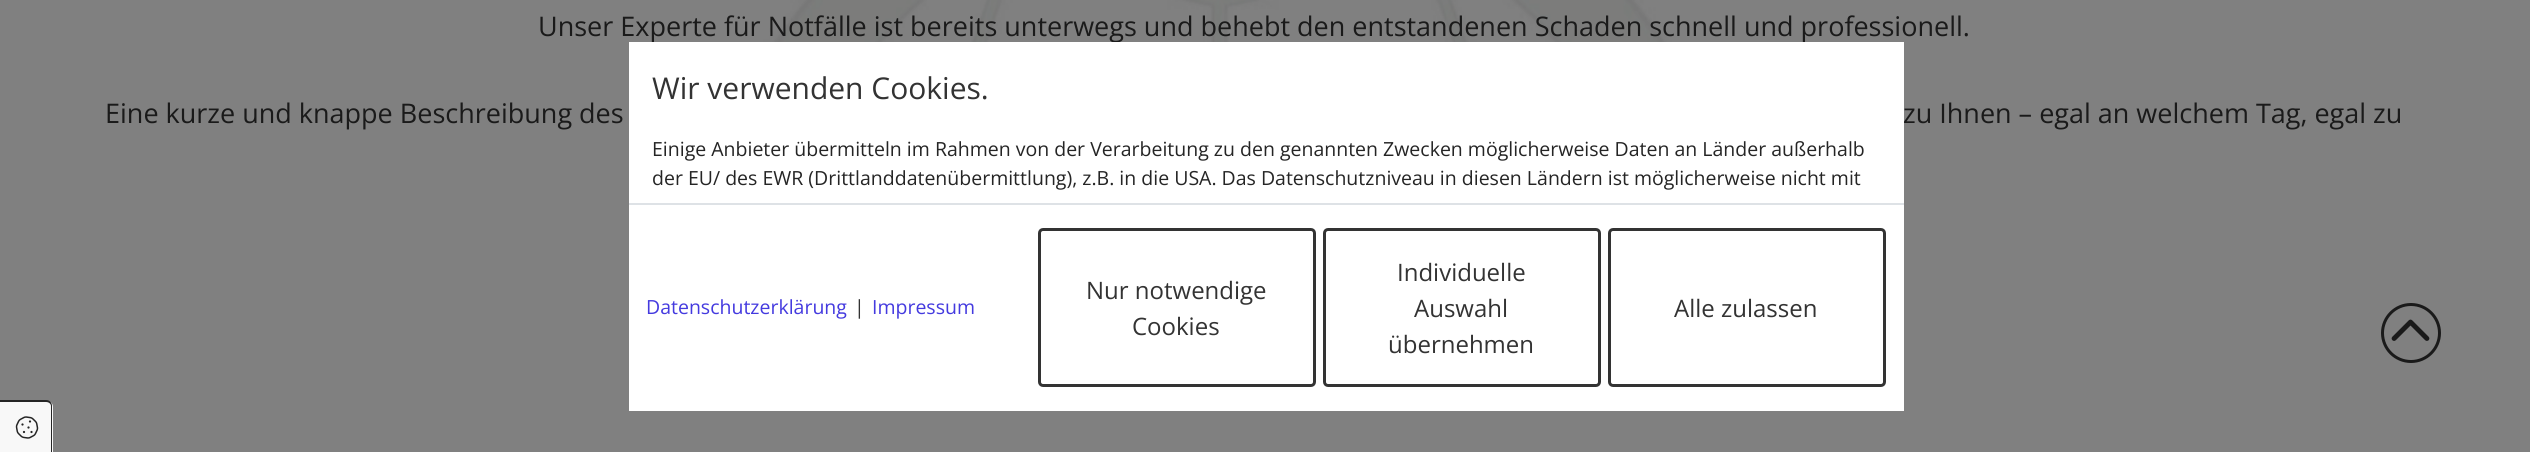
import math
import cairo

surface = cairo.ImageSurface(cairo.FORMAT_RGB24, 2530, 452)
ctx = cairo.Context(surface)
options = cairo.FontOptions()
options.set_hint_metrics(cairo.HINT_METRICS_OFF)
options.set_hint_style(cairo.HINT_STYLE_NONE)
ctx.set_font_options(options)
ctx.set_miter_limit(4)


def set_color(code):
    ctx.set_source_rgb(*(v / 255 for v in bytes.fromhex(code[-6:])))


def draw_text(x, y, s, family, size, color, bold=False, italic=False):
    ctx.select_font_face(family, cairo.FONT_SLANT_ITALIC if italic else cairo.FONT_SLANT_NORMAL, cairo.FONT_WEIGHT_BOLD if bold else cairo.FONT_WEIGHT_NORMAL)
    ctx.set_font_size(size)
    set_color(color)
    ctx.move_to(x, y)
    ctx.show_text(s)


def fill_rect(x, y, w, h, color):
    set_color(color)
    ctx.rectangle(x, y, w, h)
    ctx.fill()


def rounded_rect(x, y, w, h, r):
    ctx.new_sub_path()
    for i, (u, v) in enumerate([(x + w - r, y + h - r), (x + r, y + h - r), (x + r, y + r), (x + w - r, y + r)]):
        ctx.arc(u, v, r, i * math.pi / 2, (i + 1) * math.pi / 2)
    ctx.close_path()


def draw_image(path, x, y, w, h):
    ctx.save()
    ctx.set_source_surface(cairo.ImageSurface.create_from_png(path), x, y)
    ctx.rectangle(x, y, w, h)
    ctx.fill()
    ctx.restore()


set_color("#808080")
ctx.paint()
draw_image("assets/img1.png", 683, 0, 1073, 42)
draw_text(538, 36, "Unser Experte für Notfälle ist bereits unterwegs und behebt den entstandenen Schaden schnell und professionell.", "Open Sans", 27, "#1a1a1a")
draw_text(105, 123, "Eine kurze und knappe Beschreibung des", "Open Sans", 27, "#1a1a1a")
draw_text(1903, 123, "zu Ihnen – egal an welchem Tag, egal zu", "Open Sans", 27, "#1a1a1a")
fill_rect(629, 42, 1275, 369, "#ffffff")
draw_text(652, 99, "Wir verwenden Cookies.", "Open Sans", 30, "#333333")
draw_text(652, 156, "Einige Anbieter übermitteln im Rahmen von der Verarbeitung zu den genannten Zwecken möglicherweise Daten an Länder außerhalb", "Open Sans", 19.5, "#252525")
draw_text(652, 185, "der EU/ des EWR (Drittlanddatenübermittlung), z.B. in die USA. Das Datenschutzniveau in diesen Ländern ist möglicherweise nicht mit", "Open Sans", 19.5, "#252525")
fill_rect(629, 203, 1275, 2, "#dee2e6")
draw_text(646, 314, "Datenschutzerklärung", "Open Sans", 19.5, "#443adf")
draw_text(854, 314, "|", "Open Sans", 19.5, "#333333")
draw_text(872, 314, "Impressum", "Open Sans", 19.5, "#443adf")
rounded_rect(1039.5, 229.5, 275, 156, 3.5)
set_color("#333333")
ctx.set_line_width(3)
ctx.stroke()
draw_text(1086, 299, "Nur notwendige", "Open Sans", 24, "#333333")
draw_text(1132, 335, "Cookies", "Open Sans", 24, "#333333")
rounded_rect(1324.5, 229.5, 275, 156, 3.5)
ctx.stroke()
draw_text(1397, 281, "Individuelle", "Open Sans", 24, "#333333")
draw_text(1414, 317, "Auswahl", "Open Sans", 24, "#333333")
draw_text(1388, 353, "übernehmen", "Open Sans", 24, "#333333")
rounded_rect(1609.5, 229.5, 275, 156, 3.5)
ctx.stroke()
draw_text(1674, 317, "Alle zulassen", "Open Sans", 24, "#333333")
ctx.new_path()
ctx.arc(2411, 333, 28.5, 0, 2 * math.pi)
set_color("#1a1a1a")
ctx.stroke()
draw_image("assets/img2.png", 2391, 319, 39, 22)
set_color("#f8f8f8")
ctx.new_path()
ctx.move_to(0, 401)
ctx.line_to(47, 401)
ctx.curve_to(50.5, 401, 53, 403.5, 53, 407)
ctx.line_to(53, 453)
ctx.line_to(0, 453)
ctx.close_path()
ctx.fill()
set_color("#252525")
ctx.set_fill_rule(cairo.FILL_RULE_EVEN_ODD)
ctx.new_path()
ctx.move_to(0, 400)
ctx.line_to(46, 400)
ctx.curve_to(50, 400, 52, 403, 52, 406)
ctx.line_to(52, 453)
ctx.line_to(0, 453)
ctx.close_path()
ctx.move_to(0, 402)
ctx.line_to(46, 402)
ctx.curve_to(49, 402, 51, 404, 51, 406)
ctx.line_to(51, 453)
ctx.line_to(0, 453)
ctx.close_path()
ctx.fill()
draw_image("assets/img3.png", 15, 416, 24, 23)
surface.write_to_png("output.png")
